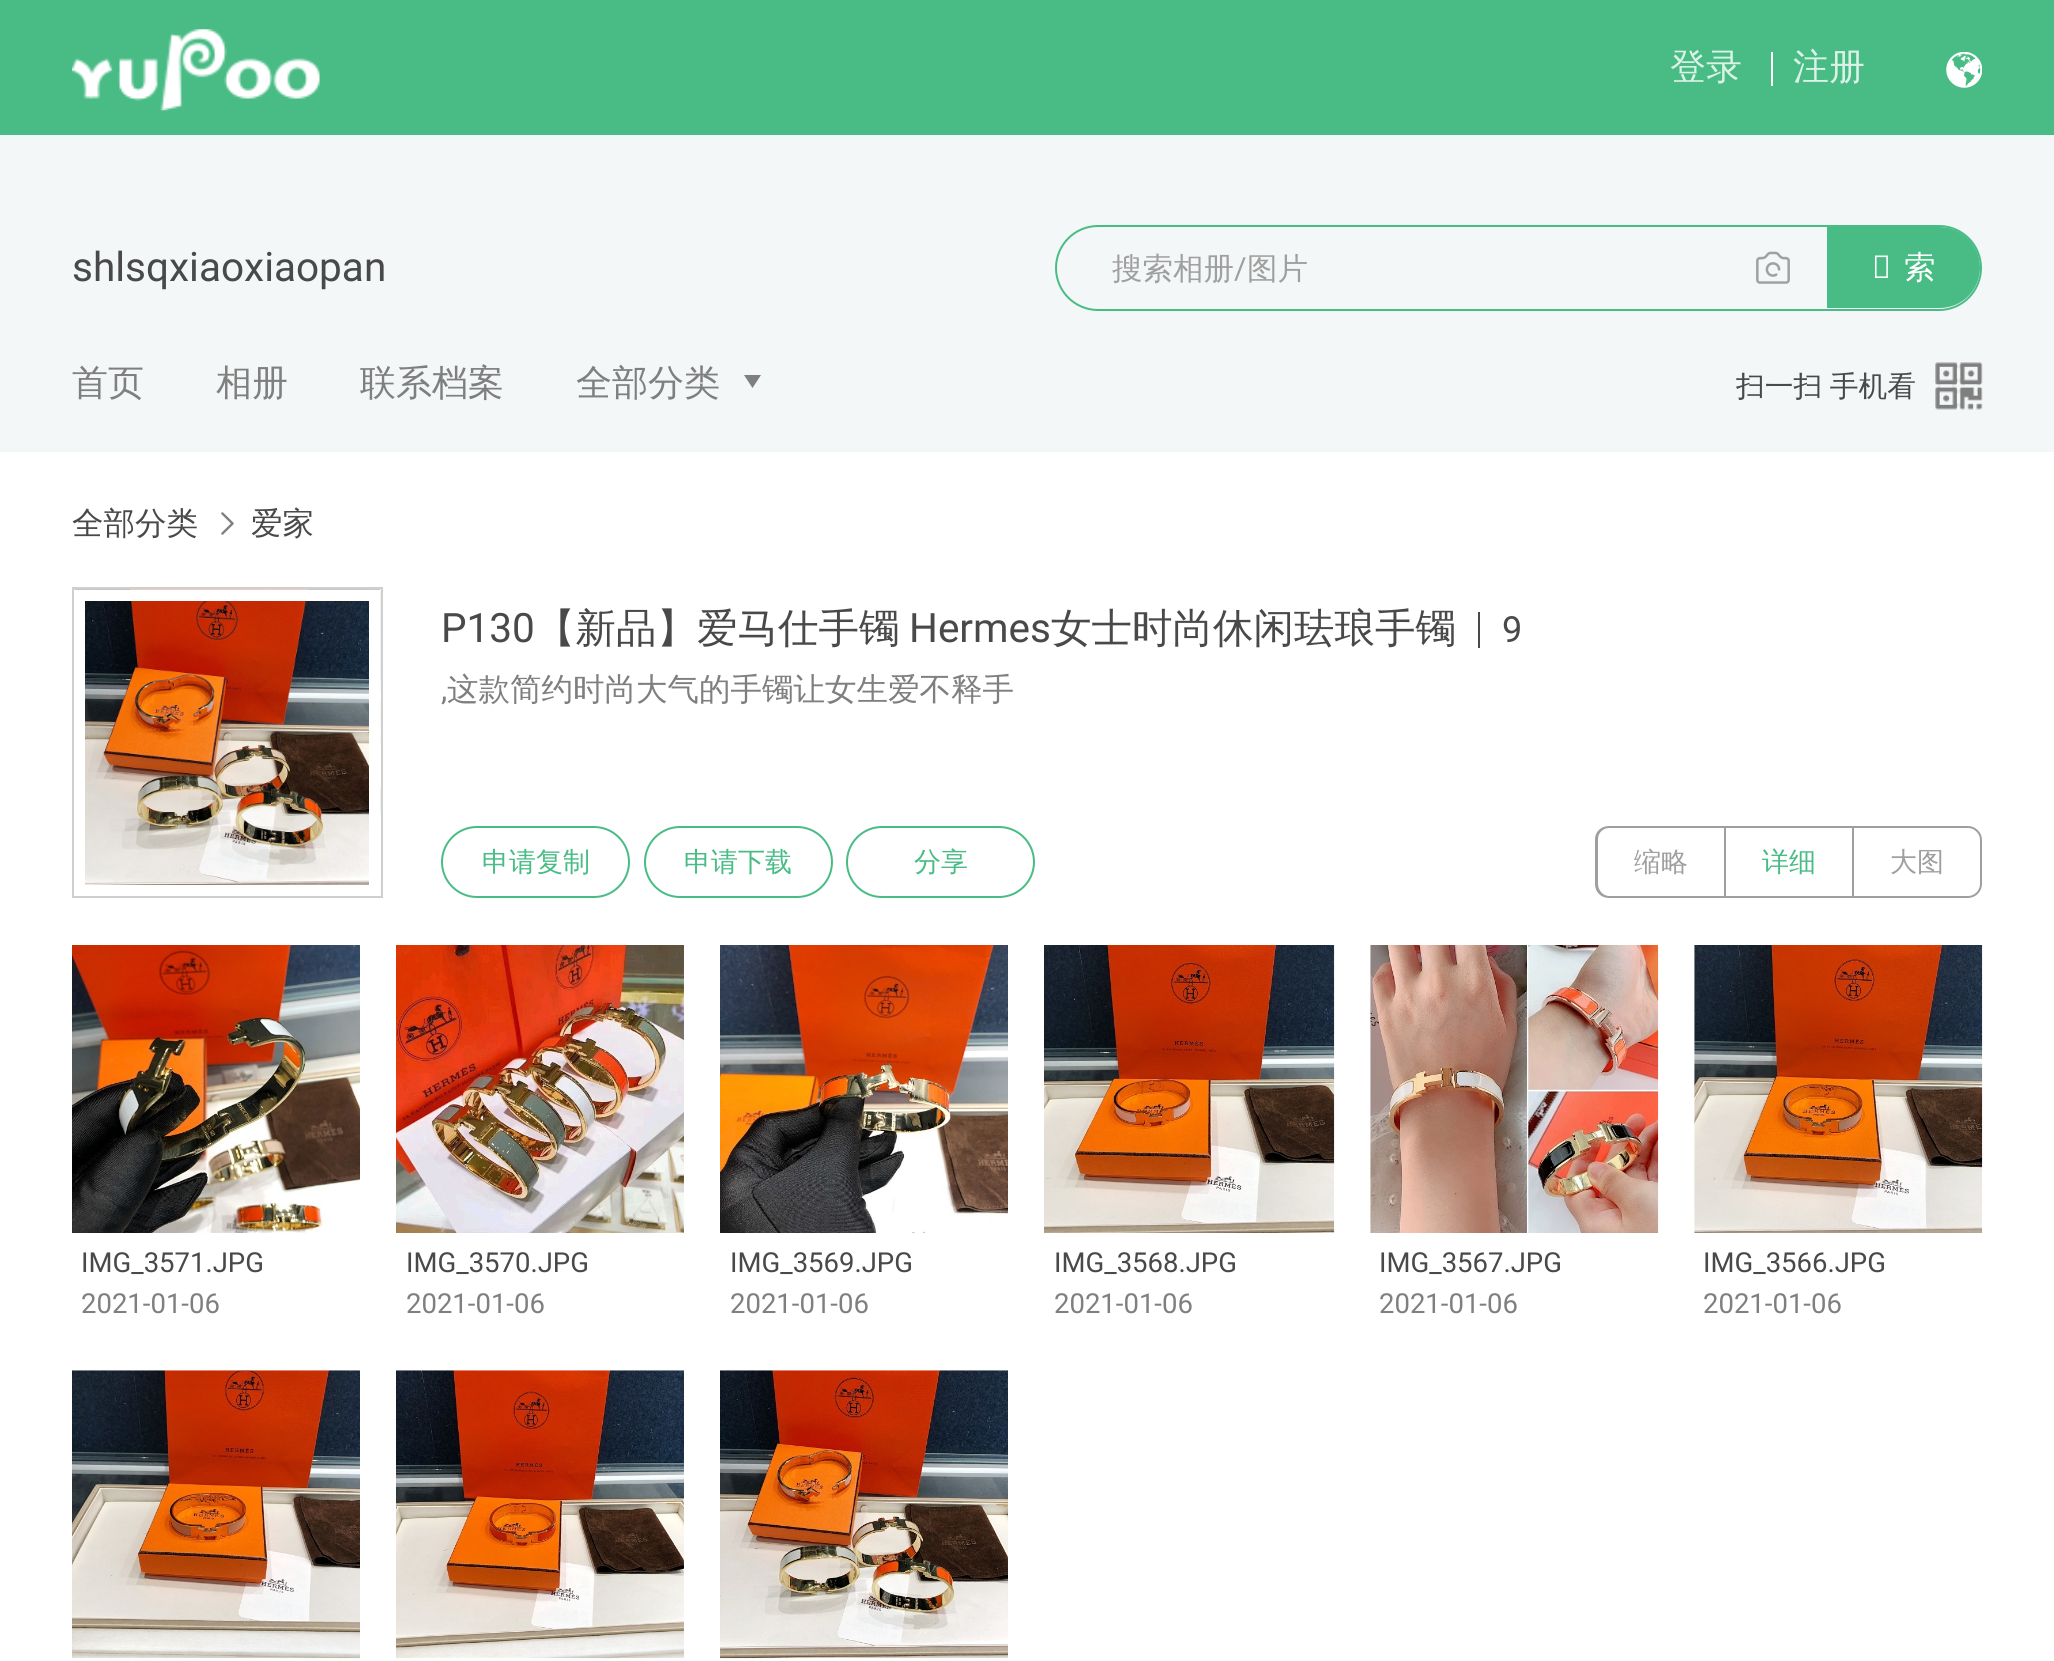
import math
import cairo

surface = cairo.ImageSurface(cairo.FORMAT_RGB24, 2054, 1661)
ctx = cairo.Context(surface)
options = cairo.FontOptions()
options.set_hint_metrics(cairo.HINT_METRICS_OFF)
options.set_hint_style(cairo.HINT_STYLE_NONE)
ctx.set_font_options(options)
ctx.set_miter_limit(4)


def set_color(code):
    ctx.set_source_rgb(*(v / 255 for v in bytes.fromhex(code[-6:])))


def draw_text(x, y, s, family, size, color, bold=False, italic=False):
    ctx.select_font_face(family, cairo.FONT_SLANT_ITALIC if italic else cairo.FONT_SLANT_NORMAL, cairo.FONT_WEIGHT_BOLD if bold else cairo.FONT_WEIGHT_NORMAL)
    ctx.set_font_size(size)
    set_color(color)
    ctx.move_to(x, y)
    ctx.show_text(s)


def draw_spaced(x, y, s, letter, word):
    ctx.move_to(x, y)
    for ch in s:
        ctx.show_text(ch)
        ctx.rel_move_to(letter + word * (ch == ' '), 0)


def fill_rect(x, y, w, h, color):
    set_color(color)
    ctx.rectangle(x, y, w, h)
    ctx.fill()


def rounded_rect(x, y, w, h, r):
    ctx.new_sub_path()
    for i, (u, v) in enumerate([(x + w - r, y + h - r), (x + r, y + h - r), (x + r, y + r), (x + w - r, y + r)]):
        ctx.arc(u, v, r, i * math.pi / 2, (i + 1) * math.pi / 2)
    ctx.close_path()


def draw_image(path, x, y, w, h):
    ctx.save()
    ctx.set_source_surface(cairo.ImageSurface.create_from_png(path), x, y)
    ctx.rectangle(x, y, w, h)
    ctx.fill()
    ctx.restore()


set_color("#ffffff")
ctx.paint()
fill_rect(0, 0, 2054, 135, "#49bc85")
draw_image("assets/img1.png", 72, 29, 248, 82)
draw_text(1670, 79, "登录", "WenQuanYi Zen Hei Medium", 36, "#dbf2e7")
fill_rect(1771, 52, 2, 34, "#ffffff")
draw_text(1793, 79, "注册", "WenQuanYi Zen Hei Medium", 36, "#dbf2e7")
draw_image("assets/img2.png", 1946, 52, 36, 36)
fill_rect(0, 135, 2054, 317, "#f3f7f7")
draw_text(72, 281, "shlsqxiaoxiaopan", "Roboto", 40.5, "#494949")
rounded_rect(1056, 226, 925, 84, 42)
set_color("#49bc85")
ctx.stroke()
draw_text(1112, 279, "搜索相册", "WenQuanYi Zen Hei Medium", 30.5, "#9f9f9f")
draw_text(1234, 279, "/", "Roboto", 30.5, "#9f9f9f")
draw_text(1247, 279, "图片", "WenQuanYi Zen Hei Medium", 30.5, "#9f9f9f")
draw_image("assets/img3.png", 1756, 251, 34, 33)
set_color("#49bc85")
ctx.new_path()
ctx.move_to(1828, 228)
ctx.line_to(1939.5, 228)
ctx.curve_to(1961.5, 228, 1979, 245.5, 1979, 267.5)
ctx.curve_to(1979, 289.5, 1961.5, 307, 1939.5, 307)
ctx.line_to(1828, 307)
ctx.close_path()
ctx.fill_preserve()
ctx.stroke()
draw_text(1872, 278, "搜", "Noto Sans", 31.5, "#ffffff")
draw_text(1904, 278, "索", "WenQuanYi Zen Hei Medium", 31.5, "#ffffff")
draw_text(72, 395, "首页", "WenQuanYi Zen Hei Medium", 36, "#7f7f7f")
draw_text(216, 395, "相册", "WenQuanYi Zen Hei Medium", 36, "#7f7f7f")
draw_text(360, 395, "联系档案", "WenQuanYi Zen Hei Medium", 36, "#7f7f7f")
draw_text(576, 395, "全部分类", "WenQuanYi Zen Hei Medium", 36, "#7f7f7f")
ctx.new_path()
ctx.move_to(752.5, 388)
ctx.line_to(744, 375)
ctx.line_to(761, 375)
ctx.close_path()
ctx.fill()
ctx.set_font_size(28.75)
set_color("#494949")
draw_spaced(1736, 396, "扫一扫 手机看", 0, -1)
draw_image("assets/img4.png", 1935, 362, 48, 48)
draw_text(72, 534, "全部分类", "WenQuanYi Zen Hei Medium", 31.5, "#494949")
draw_image("assets/img5.png", 221, 512, 13, 23)
draw_text(251, 534, "爱家", "WenQuanYi Zen Hei Medium", 31.5, "#494949")
ctx.rectangle(73, 588, 309, 309)
set_color("#cfcfcf")
ctx.stroke()
draw_image("assets/img6.png", 74, 589, 307, 306)
ctx.rectangle(79.5, 595.5, 295, 295)
set_color("#ffffff")
ctx.set_line_width(11)
ctx.stroke()
draw_text(441, 642, "P130", "Roboto", 40.5, "#494949")
draw_text(535, 642, "【新品】爱马仕手镯", "WenQuanYi Zen Hei Medium", 40.5, "#494949")
draw_text(909, 642, "Hermes", "Roboto", 40.5, "#494949")
draw_text(1051, 642, "女士时尚休闲珐琅手镯", "WenQuanYi Zen Hei Medium", 40.5, "#494949")
fill_rect(1478, 612, 2, 36, "#494949")
draw_text(1502, 642, "9", "Roboto", 36, "#494949")
draw_text(441, 700, ",", "Roboto", 31.5, "#7f7f7f")
draw_text(447, 700, "这款简约时尚大气的手镯让女生爱不释手", "WenQuanYi Zen Hei Medium", 31.5, "#7f7f7f")
rounded_rect(442, 827, 187, 70, 35)
set_color("#49bc85")
ctx.set_line_width(2)
ctx.stroke()
draw_text(482, 871, "申请复制", "WenQuanYi Zen Hei Medium", 27, "#49bc85")
rounded_rect(645, 827, 187, 70, 35)
ctx.stroke()
draw_text(684, 871, "申请下载", "WenQuanYi Zen Hei Medium", 27, "#49bc85")
rounded_rect(847, 827, 187, 70, 35)
ctx.stroke()
draw_text(914, 871, "分享", "WenQuanYi Zen Hei Medium", 27, "#49bc85")
set_color("#9f9f9f")
ctx.set_fill_rule(cairo.FILL_RULE_EVEN_ODD)
ctx.new_path()
ctx.move_to(1609, 826)
ctx.line_to(1724, 826)
ctx.line_to(1724, 898)
ctx.line_to(1609, 898)
ctx.curve_to(1601, 898, 1595, 892, 1595, 884)
ctx.line_to(1595, 839)
ctx.curve_to(1595, 832, 1601, 826, 1609, 826)
ctx.close_path()
ctx.move_to(1609, 828)
ctx.line_to(1724, 828)
ctx.line_to(1724, 896)
ctx.line_to(1609, 896)
ctx.curve_to(1603, 896, 1598, 890, 1598, 884)
ctx.line_to(1598, 839)
ctx.curve_to(1598, 833, 1603, 828, 1609, 828)
ctx.close_path()
ctx.fill()
draw_text(1634, 871, "缩略", "WenQuanYi Zen Hei Medium", 27, "#9f9f9f")
fill_rect(1724, 826, 128, 2, "#9f9f9f")
fill_rect(1724, 896, 128, 2, "#9f9f9f")
fill_rect(1724, 826, 2, 72, "#9f9f9f")
draw_text(1762, 871, "详细", "WenQuanYi Zen Hei Medium", 27, "#49bc85")
ctx.new_path()
ctx.move_to(1853, 827)
ctx.line_to(1968, 827)
ctx.curve_to(1975, 827, 1981, 833, 1981, 840)
ctx.line_to(1981, 884)
ctx.curve_to(1981, 891, 1975, 897, 1968, 897)
ctx.line_to(1853, 897)
ctx.close_path()
set_color("#9f9f9f")
ctx.stroke()
draw_text(1890, 871, "大图", "WenQuanYi Zen Hei Medium", 27, "#9f9f9f")
draw_image("assets/img7.png", 72, 945, 288, 288)
draw_text(81, 1272, "IMG_3571.JPG", "Roboto", 27.5, "#494949")
draw_text(81, 1313, "2021-01-06", "Roboto", 27.5, "#7f7f7f")
draw_image("assets/img8.png", 396, 945, 288, 288)
draw_text(406, 1272, "IMG_3570.JPG", "Roboto", 27.5, "#494949")
draw_text(406, 1313, "2021-01-06", "Roboto", 27.5, "#7f7f7f")
draw_image("assets/img9.png", 720, 945, 288, 288)
draw_text(730, 1272, "IMG_3569.JPG", "Roboto", 27.5, "#494949")
draw_text(730, 1313, "2021-01-06", "Roboto", 27.5, "#7f7f7f")
draw_image("assets/img10.png", 1044, 945, 291, 288)
draw_text(1054, 1272, "IMG_3568.JPG", "Roboto", 27.5, "#494949")
draw_text(1054, 1313, "2021-01-06", "Roboto", 27.5, "#7f7f7f")
draw_image("assets/img11.png", 1370, 945, 289, 288)
draw_text(1379, 1272, "IMG_3567.JPG", "Roboto", 27.5, "#494949")
draw_text(1379, 1313, "2021-01-06", "Roboto", 27.5, "#7f7f7f")
draw_image("assets/img12.png", 1694, 945, 289, 288)
draw_text(1703, 1272, "IMG_3566.JPG", "Roboto", 27.5, "#494949")
draw_text(1703, 1313, "2021-01-06", "Roboto", 27.5, "#7f7f7f")
draw_image("assets/img13.png", 72, 1370, 288, 289)
draw_image("assets/img14.png", 396, 1370, 288, 289)
draw_image("assets/img15.png", 720, 1370, 288, 289)
surface.write_to_png("output.png")
